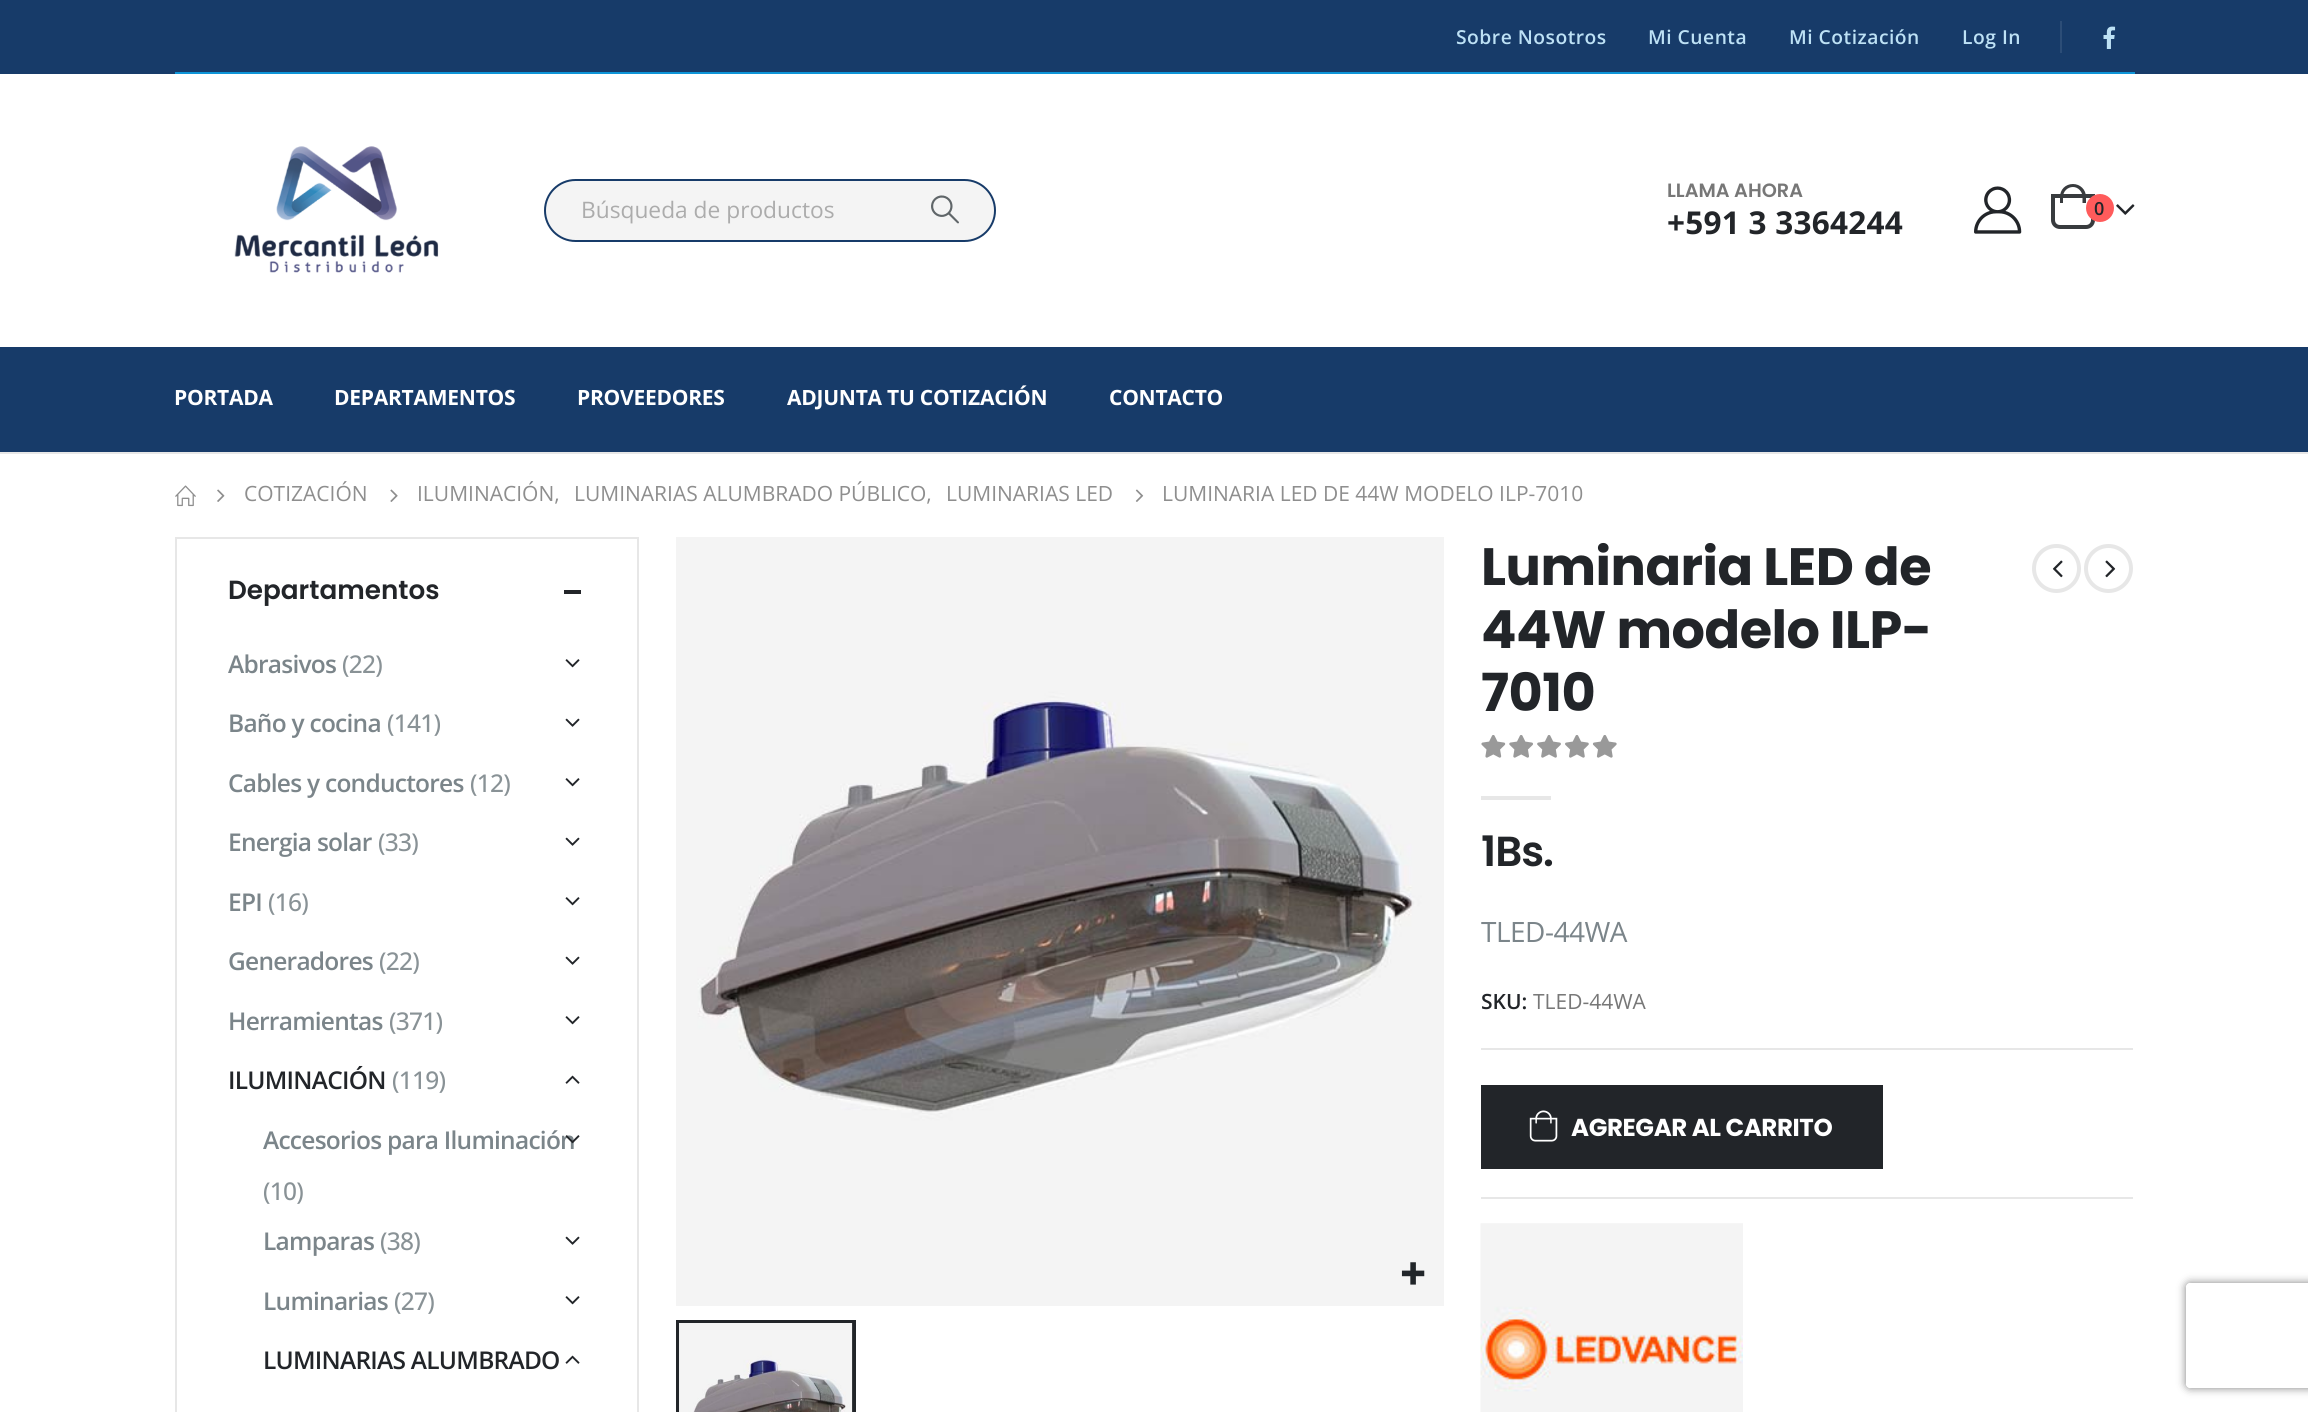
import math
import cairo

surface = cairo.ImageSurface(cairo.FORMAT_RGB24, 2308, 1412)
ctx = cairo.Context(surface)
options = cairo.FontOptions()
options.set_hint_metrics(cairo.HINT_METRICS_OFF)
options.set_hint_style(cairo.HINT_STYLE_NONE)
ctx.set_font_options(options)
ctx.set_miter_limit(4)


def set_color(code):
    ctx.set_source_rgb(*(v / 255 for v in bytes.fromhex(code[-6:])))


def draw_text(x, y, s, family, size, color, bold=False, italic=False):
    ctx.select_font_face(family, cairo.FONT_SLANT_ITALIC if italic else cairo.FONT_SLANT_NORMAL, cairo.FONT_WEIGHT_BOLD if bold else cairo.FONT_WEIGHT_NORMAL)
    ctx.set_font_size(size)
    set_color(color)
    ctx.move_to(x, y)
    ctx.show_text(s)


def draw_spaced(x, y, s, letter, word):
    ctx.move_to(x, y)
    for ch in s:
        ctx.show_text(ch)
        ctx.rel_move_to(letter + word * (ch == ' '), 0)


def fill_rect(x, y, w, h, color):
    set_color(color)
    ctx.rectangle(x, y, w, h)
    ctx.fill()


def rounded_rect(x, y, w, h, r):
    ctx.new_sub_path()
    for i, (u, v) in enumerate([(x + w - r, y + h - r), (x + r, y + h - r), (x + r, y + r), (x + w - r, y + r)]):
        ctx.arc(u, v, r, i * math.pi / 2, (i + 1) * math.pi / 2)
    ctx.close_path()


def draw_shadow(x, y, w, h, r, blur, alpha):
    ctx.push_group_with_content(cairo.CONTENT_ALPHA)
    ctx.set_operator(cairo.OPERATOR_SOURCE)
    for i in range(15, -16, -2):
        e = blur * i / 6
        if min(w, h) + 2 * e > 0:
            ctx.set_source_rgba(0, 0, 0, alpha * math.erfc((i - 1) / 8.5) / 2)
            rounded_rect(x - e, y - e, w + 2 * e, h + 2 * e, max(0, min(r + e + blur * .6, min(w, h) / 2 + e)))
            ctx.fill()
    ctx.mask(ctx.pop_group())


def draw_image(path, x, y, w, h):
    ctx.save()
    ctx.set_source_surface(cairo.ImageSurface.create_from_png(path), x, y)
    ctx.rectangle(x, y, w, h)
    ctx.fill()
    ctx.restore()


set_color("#ffffff")
ctx.paint()
fill_rect(0, 452, 2308, 2, "#e7e7e7")
fill_rect(0, 0, 2308, 74, "#173b69")
ctx.select_font_face("Open Sans SemiBold")
ctx.set_font_size(19.25)
set_color("#bde1f5")
draw_spaced(1456, 44, "Sobre Nosotros", 0.5, 0)
draw_spaced(1648, 44, "Mi Cuenta", 0.5, 0)
draw_spaced(1789, 44, "Mi Cotización", 0.5, 0)
draw_spaced(1962, 44, "Log In", 0.5, 0)
fill_rect(2060, 21, 2, 32, "#2c4d77")
draw_image("assets/img1.png", 2103, 26, 13, 23)
fill_rect(175, 72, 1960, 2, "#0e95d8")
draw_image("assets/img2.png", 234, 146, 205, 127)
set_color("#f4f4f4")
rounded_rect(545, 180, 450, 61, 30.5)
ctx.fill_preserve()
set_color("#173b69")
ctx.stroke()
draw_text(581, 218, "Búsqueda de productos", "Open Sans", 22.75, "#acacac")
draw_image("assets/img3.png", 931, 195, 28, 29)
draw_text(1667, 197, "LLAMA AHORA", "Poppins SemiBold", 19.25, "#777777")
ctx.select_font_face("Open Sans", cairo.FONT_SLANT_NORMAL, cairo.FONT_WEIGHT_BOLD)
ctx.set_font_size(31.5)
set_color("#222529")
draw_spaced(1667, 234, "+591 3 3364244", 0.25, 0)
draw_image("assets/img4.png", 1974, 186, 48, 48)
ctx.new_path()
ctx.move_to(2053, 196)
ctx.line_to(2093, 196)
ctx.line_to(2093, 220)
ctx.curve_to(2093, 224, 2090, 227, 2086, 227)
ctx.line_to(2060, 227)
ctx.curve_to(2056, 227, 2053, 224, 2053, 220)
ctx.close_path()
set_color("#383b3e")
ctx.set_line_width(4)
ctx.stroke()
ctx.set_fill_rule(cairo.FILL_RULE_EVEN_ODD)
ctx.new_path()
ctx.move_to(2073, 184)
ctx.curve_to(2080, 184, 2086, 189.5, 2086, 197)
ctx.line_to(2086, 203)
ctx.line_to(2060, 203)
ctx.line_to(2060, 197)
ctx.curve_to(2060, 189.5, 2065.5, 184, 2073, 184)
ctx.close_path()
ctx.move_to(2073, 187)
ctx.curve_to(2078, 187, 2082.5, 191.5, 2082.5, 197)
ctx.line_to(2082.5, 203)
ctx.line_to(2063, 203)
ctx.line_to(2063, 197)
ctx.curve_to(2063, 191.5, 2067.5, 187, 2073, 187)
ctx.close_path()
ctx.fill()
set_color("#ff5b5b")
ctx.arc(2100, 208, 14, 0, 2 * math.pi)
ctx.fill()
draw_text(2094, 215, "0", "Open Sans SemiBold", 18, "#222529")
draw_image("assets/img5.png", 2116, 204, 19, 11)
fill_rect(0, 347, 2308, 105, "#173b69")
ctx.select_font_face("Open Sans", cairo.FONT_SLANT_NORMAL, cairo.FONT_WEIGHT_BOLD)
ctx.set_font_size(21)
set_color("#ffffff")
draw_spaced(174, 405, "PORTADA", -0.25, 0)
draw_spaced(334, 405, "DEPARTAMENTOS", -0.25, 0)
draw_spaced(577, 405, "PROVEEDORES", -0.25, 0)
draw_spaced(787, 405, "ADJUNTA TU COTIZACIÓN", -0.25, 0)
draw_spaced(1109, 405, "CONTACTO", -0.25, 0)
draw_image("assets/img6.png", 175, 485, 21, 22)
draw_image("assets/img7.png", 217, 489, 8, 13)
draw_text(244, 501, "COTIZACIÓN", "Open Sans", 21, "#8e8e8e")
draw_image("assets/img8.png", 390, 489, 8, 13)
draw_text(417, 501, "ILUMINACIÓN,", "Open Sans", 21, "#8e8e8e")
draw_text(574, 501, "LUMINARIAS ALUMBRADO PÚBLICO,", "Open Sans", 21, "#8e8e8e")
draw_text(946, 501, "LUMINARIAS LED", "Open Sans", 21, "#8e8e8e")
draw_image("assets/img9.png", 1135, 489, 9, 13)
draw_text(1162, 501, "LUMINARIA LED DE 44W MODELO ILP-7010", "Open Sans", 21, "#8e8e8e")
ctx.rectangle(176, 538, 462, 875)
set_color("#e7e7e7")
ctx.set_line_width(2)
ctx.stroke()
draw_text(228, 599, "Departamentos", "Poppins SemiBold", 26.25, "#222529")
fill_rect(564, 590, 17, 4, "#222529")
ctx.select_font_face("Open Sans SemiBold")
ctx.set_font_size(24.5)
set_color("#7b858a")
draw_spaced(228, 673, "Abrasivos", -0.75, 0)
ctx.select_font_face("Open Sans Medium")
set_color("#899296")
draw_spaced(342, 673, "(22)", -0.75, 0)
draw_image("assets/img10.png", 565, 659, 15, 9)
ctx.select_font_face("Open Sans SemiBold")
set_color("#7b858a")
draw_spaced(228, 732, "Baño y cocina", -0.75, 0)
ctx.select_font_face("Open Sans Medium")
set_color("#899296")
draw_spaced(387, 732, "(141)", -0.75, 0)
draw_image("assets/img11.png", 565, 718, 15, 9)
ctx.select_font_face("Open Sans SemiBold")
set_color("#7b858a")
draw_spaced(228, 792, "Cables y conductores", -0.75, 0)
ctx.select_font_face("Open Sans Medium")
set_color("#899296")
draw_spaced(470, 792, "(12)", -0.75, 0)
draw_image("assets/img10.png", 565, 778, 15, 9)
ctx.select_font_face("Open Sans SemiBold")
set_color("#7b858a")
draw_spaced(228, 851, "Energia solar", -0.75, 0)
ctx.select_font_face("Open Sans Medium")
set_color("#899296")
draw_spaced(378, 851, "(33)", -0.75, 0)
draw_image("assets/img11.png", 565, 837, 15, 9)
ctx.select_font_face("Open Sans SemiBold")
set_color("#7b858a")
draw_spaced(228, 911, "EPI", -0.75, 0)
ctx.select_font_face("Open Sans Medium")
set_color("#899296")
draw_spaced(268, 911, "(16)", -0.75, 0)
draw_image("assets/img10.png", 565, 897, 15, 9)
ctx.select_font_face("Open Sans SemiBold")
set_color("#7b858a")
draw_spaced(228, 970, "Generadores", -0.75, 0)
ctx.select_font_face("Open Sans Medium")
set_color("#899296")
draw_spaced(379, 970, "(22)", -0.75, 0)
draw_image("assets/img11.png", 565, 956, 15, 9)
ctx.select_font_face("Open Sans SemiBold")
set_color("#7b858a")
draw_spaced(228, 1030, "Herramientas", -0.75, 0)
ctx.select_font_face("Open Sans Medium")
set_color("#899296")
draw_spaced(389, 1030, "(371)", -0.75, 0)
draw_image("assets/img10.png", 565, 1016, 15, 9)
ctx.select_font_face("Open Sans SemiBold")
set_color("#222529")
draw_spaced(228, 1089, "ILUMINACIÓN", -0.75, 0)
ctx.select_font_face("Open Sans Medium")
set_color("#899296")
draw_spaced(392, 1089, "(119)", -0.75, 0)
draw_image("assets/img12.png", 565, 1075, 15, 9)
ctx.select_font_face("Open Sans SemiBold")
set_color("#7b858a")
draw_spaced(263, 1149, "Accesorios para Iluminación", -0.75, 0)
draw_image("assets/img13.png", 565, 1135, 15, 9)
ctx.select_font_face("Open Sans Medium")
set_color("#899296")
draw_spaced(263, 1200, "(10)", -0.75, 0)
ctx.select_font_face("Open Sans SemiBold")
set_color("#7b858a")
draw_spaced(263, 1250, "Lamparas", -0.75, 0)
ctx.select_font_face("Open Sans Medium")
set_color("#899296")
draw_spaced(380, 1250, "(38)", -0.75, 0)
draw_image("assets/img11.png", 565, 1236, 15, 9)
ctx.select_font_face("Open Sans SemiBold")
set_color("#7b858a")
draw_spaced(263, 1310, "Luminarias", -0.75, 0)
ctx.select_font_face("Open Sans Medium")
set_color("#899296")
draw_spaced(394, 1310, "(27)", -0.75, 0)
draw_image("assets/img10.png", 565, 1296, 15, 9)
ctx.select_font_face("Open Sans SemiBold")
set_color("#222529")
draw_spaced(263, 1369, "LUMINARIAS ALUMBRADO", -0.75, 0)
draw_image("assets/img12.png", 565, 1355, 15, 9)
ctx.rectangle(677, 538, 766, 767)
set_color("#f4f4f4")
ctx.stroke()
draw_image("assets/img14.png", 678, 539, 764, 765)
draw_image("assets/img15.png", 1401, 1262, 24, 23)
ctx.rectangle(678, 1322, 176, 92)
set_color("#222529")
ctx.set_line_width(4)
ctx.stroke()
draw_image("assets/img16.png", 679, 1323, 174, 89)
ctx.select_font_face("Poppins", cairo.FONT_SLANT_NORMAL, cairo.FONT_WEIGHT_BOLD)
ctx.set_font_size(52.5)
draw_spaced(1481, 585, "Luminaria LED de", -0.5, 0)
draw_spaced(1481, 648, "44W modelo ILP-", -0.5, 0)
draw_spaced(1481, 711, "7010", -0.5, 0)
ctx.new_path()
ctx.arc(2056.5, 568.5, 22.5, 0, 2 * math.pi)
set_color("#e7e7e7")
ctx.stroke()
draw_image("assets/img17.png", 2052, 560, 11, 18)
ctx.arc(2108.5, 568.5, 22.5, 0, 2 * math.pi)
ctx.stroke()
draw_image("assets/img18.png", 2105, 560, 11, 18)
draw_image("assets/img19.png", 1481, 735, 136, 23)
fill_rect(1481, 796, 70, 4, "#e7e7e7")
ctx.select_font_face("Poppins SemiBold")
ctx.set_font_size(42)
set_color("#222529")
draw_spaced(1481, 866, "1Bs.", -1, 0)
ctx.select_font_face("Open Sans")
ctx.set_font_size(28)
set_color("#7b858a")
draw_spaced(1481, 942, "TLED-44WA", -0.5, 0)
draw_text(1481, 1009, "SKU:", "Open Sans SemiBold", 21, "#222529")
draw_text(1533, 1009, "TLED-44WA", "Open Sans", 21, "#777777")
fill_rect(1481, 1048, 652, 2, "#e7e7e7")
fill_rect(1481, 1197, 652, 2, "#e7e7e7")
fill_rect(1481, 1085, 402, 84, "#222529")
draw_image("assets/img20.png", 1529, 1110, 29, 32)
ctx.select_font_face("Poppins", cairo.FONT_SLANT_NORMAL, cairo.FONT_WEIGHT_BOLD)
ctx.set_font_size(24.5)
set_color("#ffffff")
draw_spaced(1571, 1136, "AGREGAR AL CARRITO", -0.4, 0)
draw_image("assets/img21.png", 1480, 1223, 263, 189)
ctx.save()
ctx.new_path()
ctx.move_to(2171, 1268)
ctx.line_to(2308, 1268)
ctx.line_to(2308, 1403)
ctx.line_to(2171, 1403)
ctx.close_path()
ctx.move_to(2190, 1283)
ctx.line_to(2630, 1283)
ctx.curve_to(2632, 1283, 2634, 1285, 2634, 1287)
ctx.line_to(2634, 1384)
ctx.curve_to(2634, 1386, 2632, 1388, 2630, 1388)
ctx.line_to(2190, 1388)
ctx.curve_to(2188, 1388, 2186, 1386, 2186, 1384)
ctx.line_to(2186, 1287)
ctx.curve_to(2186, 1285, 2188, 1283, 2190, 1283)
ctx.close_path()
ctx.clip()
set_color("#808080")
draw_shadow(2186, 1283, 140, 105, 4, 4.5, 1)
ctx.restore()
surface.write_to_png("output.png")
